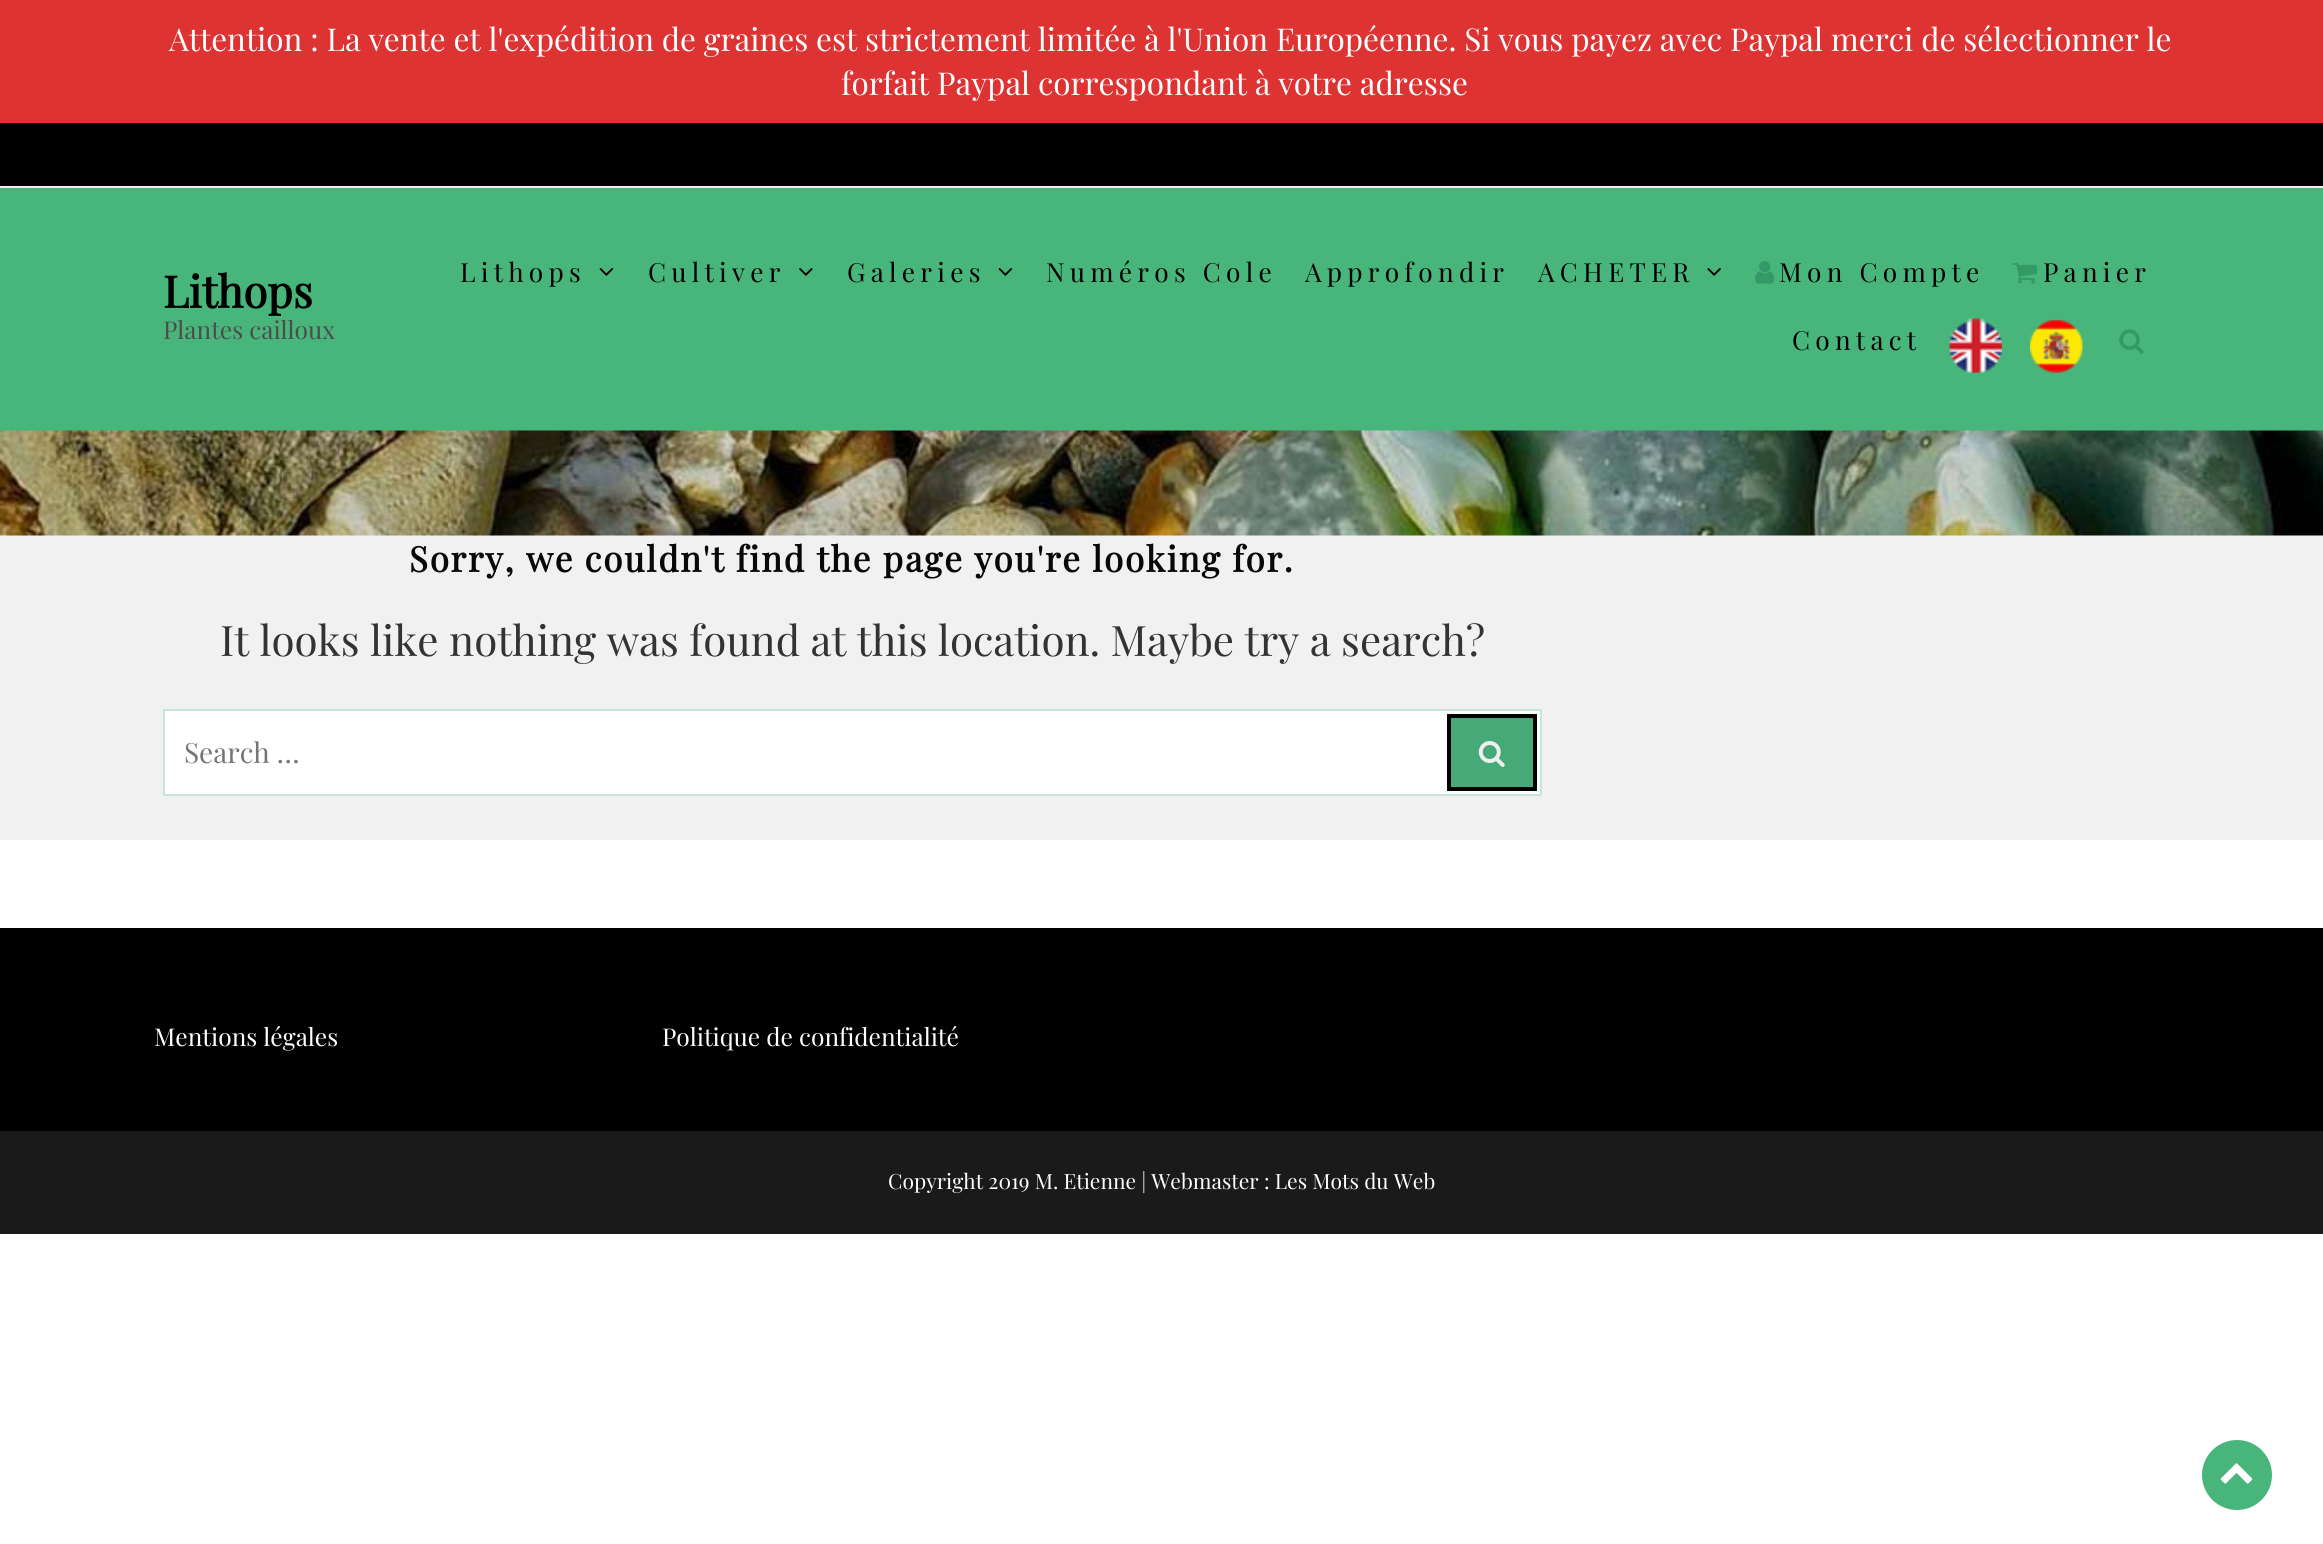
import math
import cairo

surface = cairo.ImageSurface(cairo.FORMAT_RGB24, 2323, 1544)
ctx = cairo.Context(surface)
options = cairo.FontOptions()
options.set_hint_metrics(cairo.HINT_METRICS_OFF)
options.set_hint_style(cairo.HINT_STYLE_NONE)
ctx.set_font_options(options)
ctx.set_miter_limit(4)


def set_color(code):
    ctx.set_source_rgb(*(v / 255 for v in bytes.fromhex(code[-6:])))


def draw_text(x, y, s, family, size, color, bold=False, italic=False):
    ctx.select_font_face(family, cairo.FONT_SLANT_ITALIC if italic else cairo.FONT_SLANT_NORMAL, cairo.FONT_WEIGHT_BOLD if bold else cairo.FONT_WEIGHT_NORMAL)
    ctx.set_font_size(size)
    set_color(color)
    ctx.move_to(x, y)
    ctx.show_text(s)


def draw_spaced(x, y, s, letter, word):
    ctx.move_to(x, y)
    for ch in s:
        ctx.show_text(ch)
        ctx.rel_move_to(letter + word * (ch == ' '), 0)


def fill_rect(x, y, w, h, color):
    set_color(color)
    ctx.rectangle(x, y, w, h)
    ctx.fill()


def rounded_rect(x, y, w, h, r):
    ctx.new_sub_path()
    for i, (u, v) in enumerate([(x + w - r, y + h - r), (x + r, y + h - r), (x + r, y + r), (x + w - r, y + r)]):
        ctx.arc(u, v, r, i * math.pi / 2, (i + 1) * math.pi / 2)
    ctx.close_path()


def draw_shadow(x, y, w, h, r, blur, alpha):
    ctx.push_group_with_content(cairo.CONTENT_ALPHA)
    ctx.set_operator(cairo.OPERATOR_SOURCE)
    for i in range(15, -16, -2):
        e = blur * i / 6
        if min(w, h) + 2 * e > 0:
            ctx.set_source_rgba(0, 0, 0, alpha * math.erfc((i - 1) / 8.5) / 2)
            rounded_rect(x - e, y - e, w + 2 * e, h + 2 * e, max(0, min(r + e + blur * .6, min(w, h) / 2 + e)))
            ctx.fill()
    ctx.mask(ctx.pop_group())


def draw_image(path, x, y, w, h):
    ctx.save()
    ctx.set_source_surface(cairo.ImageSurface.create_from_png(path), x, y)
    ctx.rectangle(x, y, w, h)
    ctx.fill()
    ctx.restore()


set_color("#ffffff")
ctx.paint()
fill_rect(0, 123, 2323, 63, "#000000")
set_color("#000000")
draw_shadow(0, 5, 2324, 123, 0, 3.5, 0.05)
fill_rect(0, 0, 2323, 123, "#dd3333")
draw_text(169, 51, "Attention : La vente et l'expédition de graines est strictement limitée à l'Union Européenne. Si vous payez avec Paypal merci de sélectionner le", "Playfair Display", 31.5, "#ffffff")
draw_text(841, 95, "forfait Paypal correspondant à votre adresse", "Playfair Display", 31.5, "#ffffff")
fill_rect(0, 186, 2323, 2, "#eeeeee")
fill_rect(0, 188, 2323, 243, "#48b57b")
draw_text(163, 308, "Lithops", "Playfair Display", 44, "#000000", bold=True)
draw_text(163, 339, "Plantes cailloux", "Playfair Display", 24.5, "#4c4c4c")
ctx.set_font_size(26.25)
set_color("#000000")
draw_spaced(460, 282, "Lithops", 5.25, 0)
draw_image("assets/img1.png", 599, 268, 15, 8)
draw_spaced(648, 282, "Cultiver", 5.25, 0)
draw_image("assets/img2.png", 799, 268, 14, 8)
draw_spaced(847, 282, "Galeries", 5.25, 0)
draw_image("assets/img1.png", 998, 268, 15, 8)
draw_spaced(1046, 282, "Numéros Cole", 5.25, 0)
draw_spaced(1305, 282, "Approfondir", 5.25, 0)
draw_spaced(1538, 282, "ACHETER", 5.25, 0)
draw_image("assets/img3.png", 1707, 268, 14, 8)
draw_image("assets/img4.png", 1755, 261, 19, 23)
draw_spaced(1779, 282, "Mon Compte", 5.25, 0)
draw_image("assets/img5.png", 2012, 263, 25, 21)
draw_spaced(2043, 282, "Panier", 5.25, 0)
draw_spaced(1792, 350, "Contact", 5.25, 0)
draw_image("assets/img6.png", 1949, 318, 53, 55)
draw_image("assets/img7.png", 2030, 319, 53, 54)
draw_image("assets/img8.png", 2119, 329, 25, 25)
fill_rect(0, 535, 2323, 305, "#f1f1f1")
draw_image("assets/img9.png", 0, 430, 2323, 106)
ctx.select_font_face("Playfair Display", cairo.FONT_SLANT_NORMAL, cairo.FONT_WEIGHT_BOLD)
ctx.set_font_size(35)
set_color("#080808")
draw_spaced(409, 572, "Sorry, we couldn't find the page you're looking for.", 1.75, 0)
draw_text(220, 656, "It looks like nothing was found at this location. Maybe try a search?", "Playfair Display", 42, "#333333")
set_color("#ffffff")
ctx.rectangle(164, 710, 1377, 85)
ctx.fill_preserve()
set_color("#c8e6d7")
ctx.stroke()
draw_text(184, 763, "Search …", "Playfair Display", 28, "#757575")
set_color("#46aa78")
ctx.rectangle(1449, 716, 86, 73)
ctx.fill_preserve()
set_color("#000000")
ctx.set_line_width(4)
ctx.stroke()
draw_image("assets/img10.png", 1478, 741, 27, 26)
fill_rect(0, 928, 2323, 203, "#000000")
draw_text(154, 1046, "Mentions légales", "Playfair Display", 24.5, "#ffffff")
draw_text(662, 1046, "Politique de confidentialité", "Playfair Display", 24.5, "#ffffff")
fill_rect(0, 1131, 2323, 103, "#1a1a1a")
draw_text(888, 1189, "Copyright 2019 M. Etienne | Webmaster : Les Mots du Web", "Playfair Display", 21, "#ffffff")
set_color("#48b57b")
ctx.new_path()
ctx.arc(2237, 1475, 35, 0, 2 * math.pi)
ctx.fill()
draw_image("assets/img11.png", 2220, 1463, 33, 21)
surface.write_to_png("output.png")
